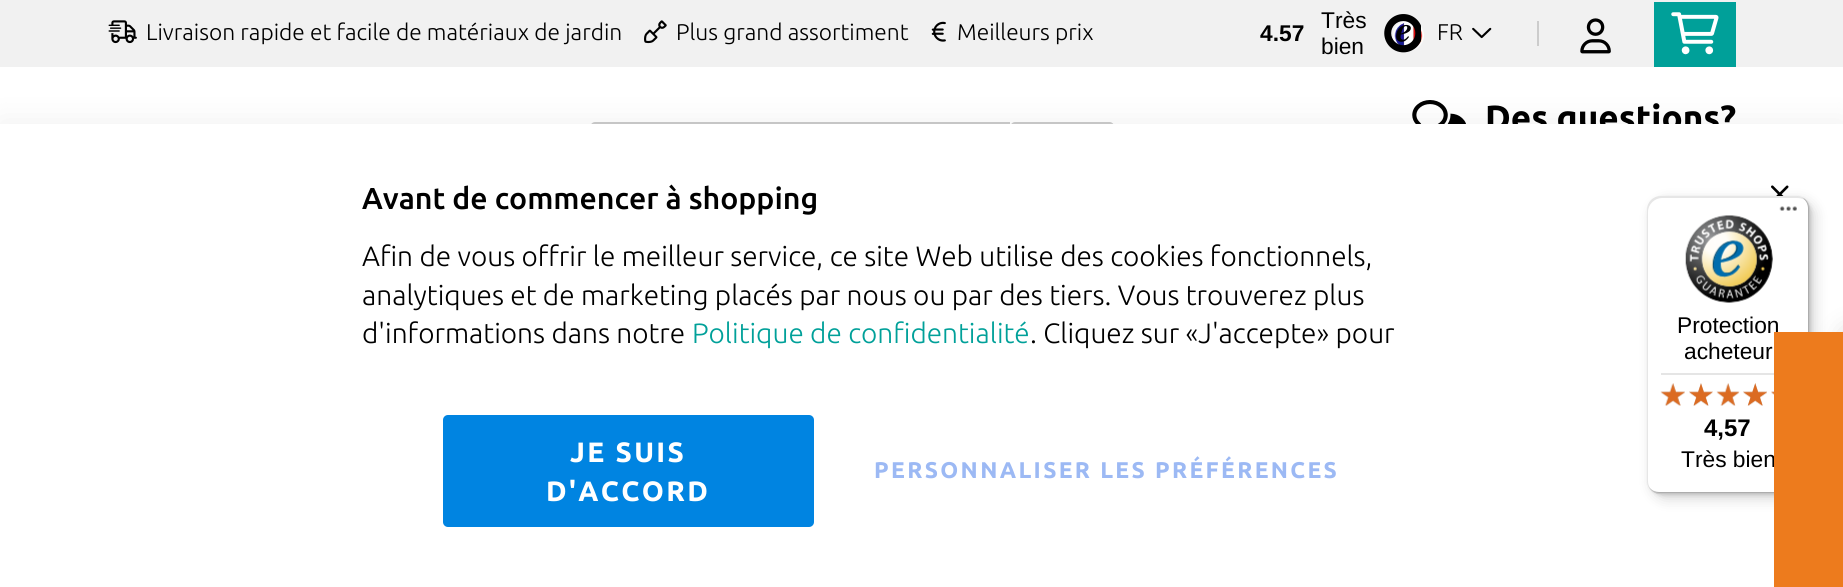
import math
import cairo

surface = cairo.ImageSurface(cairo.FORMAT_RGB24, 1843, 587)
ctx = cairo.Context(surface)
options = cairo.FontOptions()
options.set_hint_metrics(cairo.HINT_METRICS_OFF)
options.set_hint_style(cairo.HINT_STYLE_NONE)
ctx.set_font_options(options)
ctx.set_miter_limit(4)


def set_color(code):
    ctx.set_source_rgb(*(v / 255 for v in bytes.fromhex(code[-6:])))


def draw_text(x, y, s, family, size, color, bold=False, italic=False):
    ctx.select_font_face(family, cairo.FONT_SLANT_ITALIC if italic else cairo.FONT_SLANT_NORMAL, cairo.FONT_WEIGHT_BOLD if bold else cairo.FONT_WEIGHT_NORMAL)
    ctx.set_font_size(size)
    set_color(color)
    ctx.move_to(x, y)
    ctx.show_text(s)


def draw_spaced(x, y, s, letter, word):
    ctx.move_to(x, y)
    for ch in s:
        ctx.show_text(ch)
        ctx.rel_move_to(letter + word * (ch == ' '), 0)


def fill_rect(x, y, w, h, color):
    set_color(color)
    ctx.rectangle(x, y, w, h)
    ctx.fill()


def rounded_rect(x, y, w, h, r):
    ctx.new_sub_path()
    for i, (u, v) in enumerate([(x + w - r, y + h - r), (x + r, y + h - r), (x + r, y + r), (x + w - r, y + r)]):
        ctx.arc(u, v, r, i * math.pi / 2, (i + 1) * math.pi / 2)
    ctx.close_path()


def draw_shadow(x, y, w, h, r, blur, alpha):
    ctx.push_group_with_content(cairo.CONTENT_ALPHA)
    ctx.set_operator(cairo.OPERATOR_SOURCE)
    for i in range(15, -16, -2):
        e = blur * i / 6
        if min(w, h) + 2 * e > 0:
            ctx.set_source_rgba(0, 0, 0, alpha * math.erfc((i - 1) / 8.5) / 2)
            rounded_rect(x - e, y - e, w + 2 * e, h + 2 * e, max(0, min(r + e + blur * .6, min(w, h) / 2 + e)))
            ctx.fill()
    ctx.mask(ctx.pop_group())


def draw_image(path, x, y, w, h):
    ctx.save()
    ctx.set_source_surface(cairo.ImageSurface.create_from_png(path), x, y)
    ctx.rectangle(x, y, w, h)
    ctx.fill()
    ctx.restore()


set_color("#ffffff")
ctx.paint()
fill_rect(0, 0, 1843, 67, "#f1f1f1")
draw_image("assets/img1.png", 108, 20, 29, 24)
draw_text(146, 40, "Livraison rapide et facile de matériaux de jardin", "Ubuntu Light", 22.75, "#000000")
draw_image("assets/img2.png", 644, 20, 23, 24)
draw_text(676, 40, "Plus grand assortiment", "Ubuntu Light", 22.75, "#000000")
draw_image("assets/img3.png", 931, 21, 15, 21)
draw_text(957, 40, "Meilleurs prix", "Ubuntu Light", 22.75, "#000000")
draw_text(1260, 41, "4.57", "Liberation Sans", 22.75, "#000000", bold=True)
draw_text(1321, 28, "Très", "Liberation Sans", 22.75, "#000000")
draw_text(1321, 54, "bien", "Liberation Sans", 22.75, "#000000")
draw_image("assets/img5.png", 1393, 21, 31, 30)
draw_image("assets/img4.png", 1384, 14, 37, 39)
draw_text(1437, 40, "FR", "Ubuntu Light", 22.75, "#000000")
draw_image("assets/img6.png", 1472, 27, 20, 12)
fill_rect(1537, 21, 2, 25, "#cccccc")
draw_image("assets/img7.png", 1580, 18, 31, 36)
fill_rect(1654, 2, 82, 65, "#00a099")
draw_image("assets/img8.png", 1671, 12, 48, 43)
set_color("#cccccc")
ctx.set_fill_rule(cairo.FILL_RULE_EVEN_ODD)
ctx.new_path()
ctx.move_to(595, 122)
ctx.line_to(1010, 122)
ctx.line_to(1010, 196)
ctx.line_to(595, 196)
ctx.curve_to(592, 196, 590, 194, 590, 191)
ctx.line_to(590, 128)
ctx.curve_to(590, 125, 592, 122, 595, 122)
ctx.close_path()
ctx.move_to(595, 124)
ctx.line_to(1010, 124)
ctx.line_to(1010, 194)
ctx.line_to(595, 194)
ctx.curve_to(593, 194, 592, 193, 592, 191)
ctx.line_to(592, 128)
ctx.curve_to(592, 126, 593, 124, 595, 124)
ctx.close_path()
ctx.fill()
ctx.new_path()
ctx.move_to(1015, 122)
ctx.line_to(1110, 122)
ctx.curve_to(1112, 122, 1115, 125, 1115, 128)
ctx.line_to(1115, 191)
ctx.curve_to(1115, 194, 1112, 196, 1110, 196)
ctx.line_to(1015, 196)
ctx.curve_to(1012, 196, 1010, 194, 1010, 191)
ctx.line_to(1010, 128)
ctx.curve_to(1010, 125, 1012, 122, 1015, 122)
ctx.close_path()
ctx.move_to(1015, 124)
ctx.line_to(1110, 124)
ctx.curve_to(1111, 124, 1113, 126, 1113, 128)
ctx.line_to(1113, 191)
ctx.curve_to(1113, 193, 1111, 194, 1110, 194)
ctx.line_to(1015, 194)
ctx.curve_to(1012, 194, 1010, 193, 1010, 191)
ctx.line_to(1010, 128)
ctx.curve_to(1010, 126, 1012, 124, 1015, 124)
ctx.close_path()
ctx.fill()
draw_image("assets/img9.png", 1412, 100, 54, 24)
draw_text(1485, 130, "Des questions?", "Ubuntu", 35, "#000000", bold=True)
set_color("#000000")
draw_shadow(0, 121, 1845, 464, 0, 16, 0.06)
fill_rect(0, 124, 1843, 463, "#ffffff")
draw_text(362, 209, "Avant de commencer à shopping", "Ubuntu Medium", 30.3, "#000000")
draw_text(362, 266, "Afin de vous offrir le meilleur service, ce site Web utilise des cookies fonctionnels,", "Ubuntu Light", 28, "#000000")
draw_text(362, 305, "analytiques et de marketing placés par nous ou par des tiers. Vous trouverez plus", "Ubuntu Light", 28, "#000000")
draw_text(362, 343, "d'informations dans notre", "Ubuntu Light", 28, "#000000")
draw_text(692, 343, "Politique de confidentialité", "Ubuntu Light", 28, "#00a099")
draw_text(1030, 343, ". Cliquez sur «J'accepte» pour", "Ubuntu Light", 28, "#000000")
set_color("#0084e1")
rounded_rect(443, 415, 371, 112, 5)
ctx.fill()
ctx.select_font_face("Ubuntu", cairo.FONT_SLANT_NORMAL, cairo.FONT_WEIGHT_BOLD)
set_color("#ffffff")
draw_spaced(570, 462, "JE SUIS", 2.35, 0)
draw_spaced(546, 501, "D'ACCORD", 2.35, 0)
ctx.set_font_size(22.75)
set_color("#9cb9f4")
draw_spaced(874, 478, "PERSONNALISER LES PRÉFÉRENCES", 2.35, 0)
draw_image("assets/img10.png", 1771, 185, 18, 11)
set_color("#000000")
draw_shadow(1652, 201, 163, 298, 14, 7, 0.15)
draw_shadow(1649, 198, 162, 297, 14, 2, 0.15)
set_color("#ffffff")
rounded_rect(1647, 196, 163, 298, 14)
ctx.fill()
ctx.set_source_rgba(0, 0, 0, 0.1)
ctx.set_fill_rule(cairo.FILL_RULE_WINDING)
ctx.new_path()
ctx.move_to(1662, 198)
ctx.line_to(1797, 198)
ctx.curve_to(1802, 198, 1806, 200, 1809, 204)
ctx.curve_to(1806, 199, 1802, 196, 1796, 196)
ctx.line_to(1661, 196)
ctx.curve_to(1653, 196, 1647, 202, 1647, 210)
ctx.line_to(1647, 480)
ctx.curve_to(1647, 485, 1649, 489, 1653, 491)
ctx.curve_to(1650, 489, 1648, 485, 1648, 481)
ctx.line_to(1648, 212)
ctx.curve_to(1648, 204, 1655, 198, 1662, 198)
ctx.close_path()
ctx.fill()
ctx.set_source_rgba(0, 0, 0, 0.2)
ctx.new_path()
ctx.move_to(1650, 488)
ctx.curve_to(1652, 492, 1656, 494, 1661, 494)
ctx.line_to(1796, 494)
ctx.curve_to(1804, 494, 1810, 488, 1810, 480)
ctx.line_to(1810, 210)
ctx.curve_to(1810, 205, 1807, 200, 1803, 198)
ctx.curve_to(1806, 201, 1808, 204, 1808, 208)
ctx.line_to(1808, 478)
ctx.curve_to(1808, 485, 1801, 492, 1794, 492)
ctx.line_to(1659, 492)
ctx.curve_to(1655, 492, 1652, 491, 1650, 488)
ctx.close_path()
ctx.fill()
ctx.set_source_rgba(0.196, 0.196, 0.196, 0.2)
ctx.new_path()
ctx.move_to(1648, 486)
ctx.curve_to(1651, 491, 1655, 494, 1661, 494)
ctx.line_to(1796, 494)
ctx.curve_to(1804, 494, 1810, 488, 1810, 480)
ctx.line_to(1810, 210)
ctx.curve_to(1810, 204, 1807, 200, 1802, 197)
ctx.curve_to(1806, 200, 1808, 204, 1808, 209)
ctx.line_to(1808, 478)
ctx.curve_to(1808, 486, 1802, 492, 1794, 492)
ctx.line_to(1660, 492)
ctx.curve_to(1655, 492, 1651, 490, 1648, 486)
ctx.close_path()
ctx.fill()
ctx.set_source_rgba(1, 1, 1, 0.3)
ctx.new_path()
ctx.move_to(1650, 488)
ctx.curve_to(1652, 492, 1656, 494, 1661, 494)
ctx.line_to(1796, 494)
ctx.curve_to(1804, 494, 1810, 488, 1810, 480)
ctx.line_to(1810, 210)
ctx.curve_to(1810, 205, 1808, 201, 1804, 199)
ctx.curve_to(1807, 201, 1809, 205, 1809, 209)
ctx.line_to(1809, 479)
ctx.curve_to(1809, 486, 1802, 493, 1795, 493)
ctx.line_to(1660, 493)
ctx.curve_to(1656, 493, 1652, 491, 1650, 488)
ctx.close_path()
ctx.fill()
draw_image("assets/img11.png", 1779, 206, 18, 5)
draw_image("assets/img12.png", 1685, 215, 88, 88)
draw_text(1677, 333, "Protection", "Liberation Sans", 22.75, "#000000")
draw_text(1684, 359, "acheteur", "Liberation Sans", 22.75, "#000000")
fill_rect(1661, 373, 113, 2, "#e5e5e5")
draw_image("assets/img18.png", 1661, 383, 24, 23)
draw_image("assets/img13.png", 1660, 383, 25, 23)
draw_image("assets/img19.png", 1689, 383, 24, 23)
draw_image("assets/img14.png", 1689, 383, 24, 23)
draw_image("assets/img20.png", 1717, 383, 22, 23)
draw_image("assets/img15.png", 1716, 383, 24, 23)
draw_image("assets/img21.png", 1743, 383, 24, 23)
draw_image("assets/img16.png", 1743, 383, 24, 23)
draw_image("assets/img22.png", 1771, 391, 3, 4)
draw_image("assets/img17.png", 1771, 391, 3, 4)
draw_text(1704, 436, "4,57", "Liberation Sans", 24, "#000000", bold=True)
draw_text(1681, 467, "Très bien", "Liberation Sans", 22.75, "#000000")
set_color("#000000")
draw_shadow(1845, 333, 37, 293, 0, 13, 0.18)
fill_rect(1774, 332, 69, 255, "#ed7b1d")
surface.write_to_png("output.png")
